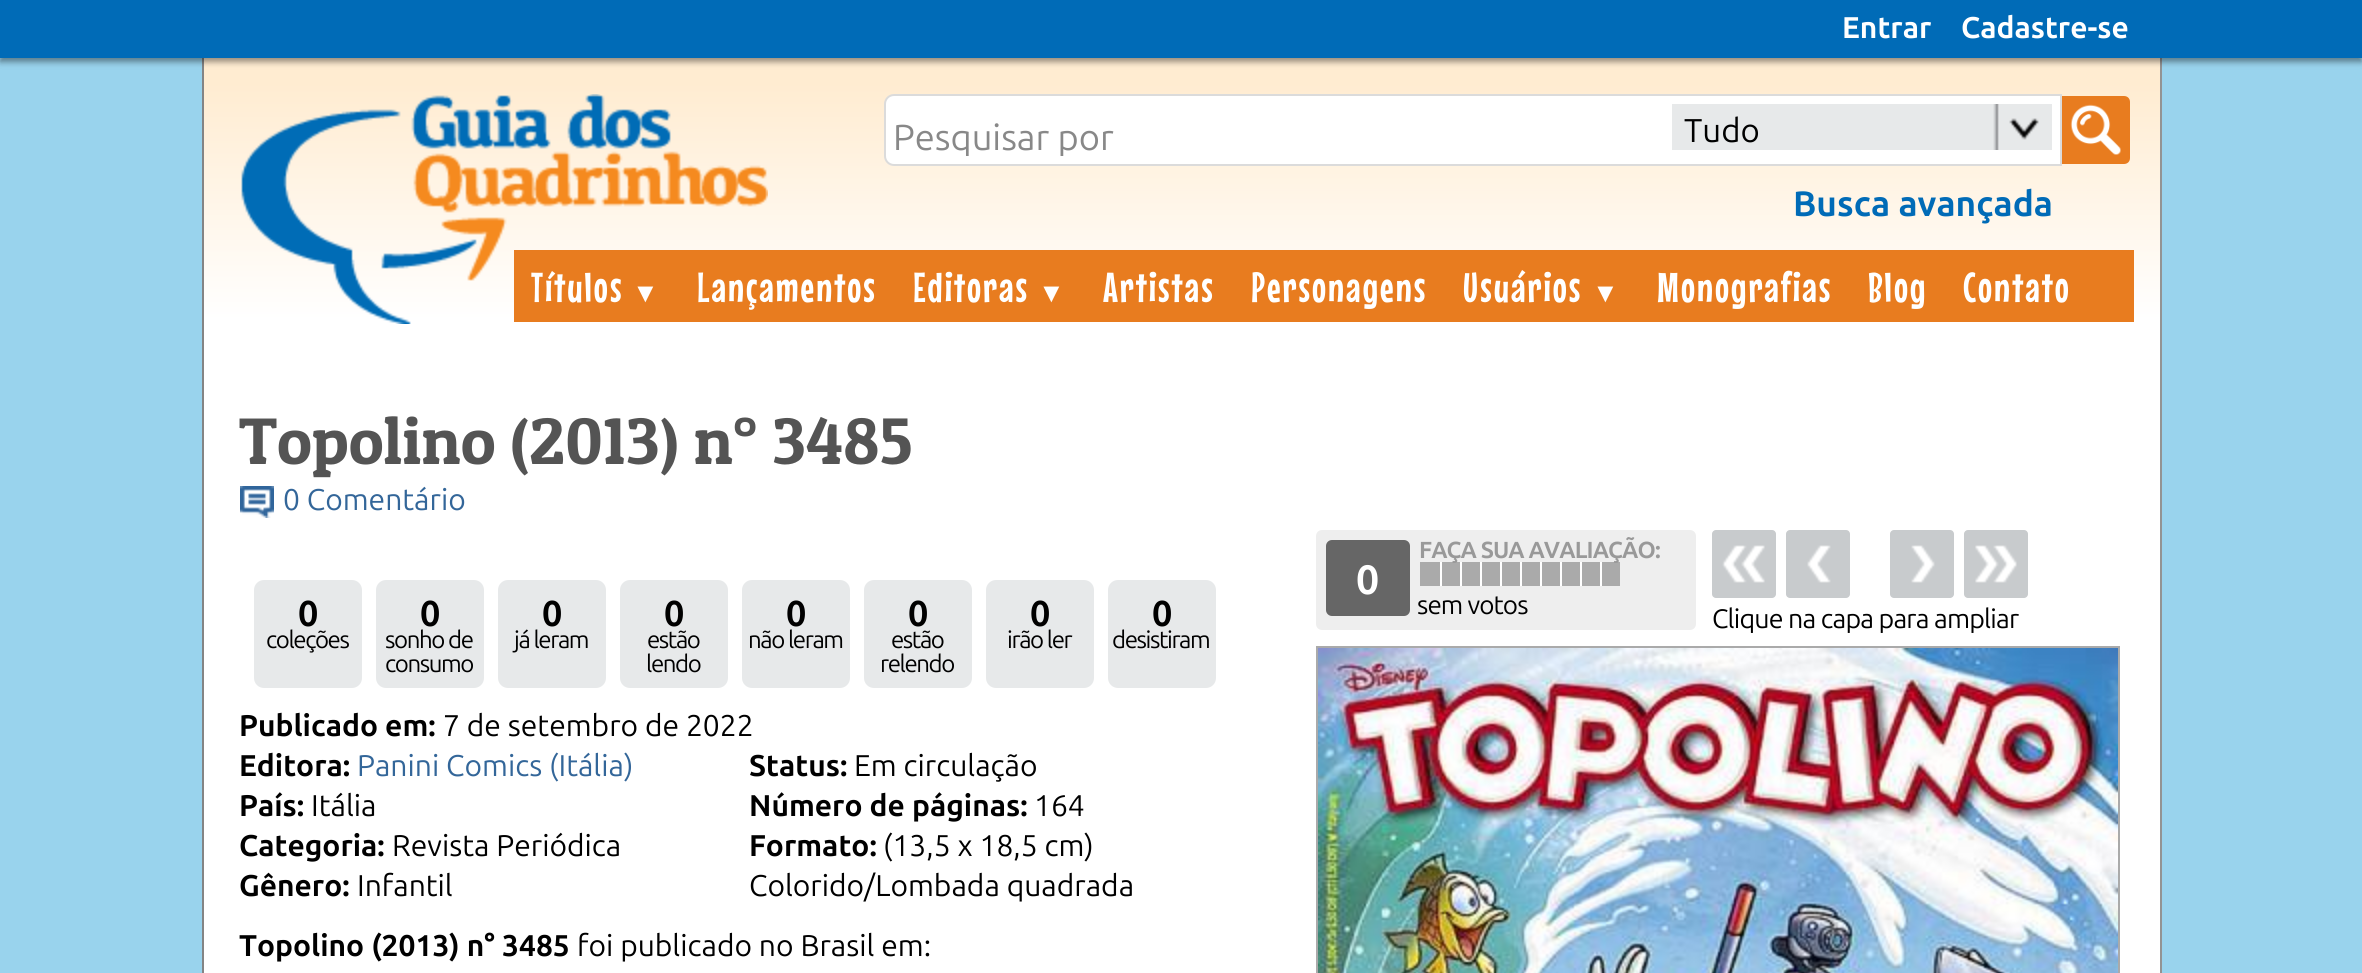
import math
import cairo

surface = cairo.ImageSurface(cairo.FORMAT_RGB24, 2362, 973)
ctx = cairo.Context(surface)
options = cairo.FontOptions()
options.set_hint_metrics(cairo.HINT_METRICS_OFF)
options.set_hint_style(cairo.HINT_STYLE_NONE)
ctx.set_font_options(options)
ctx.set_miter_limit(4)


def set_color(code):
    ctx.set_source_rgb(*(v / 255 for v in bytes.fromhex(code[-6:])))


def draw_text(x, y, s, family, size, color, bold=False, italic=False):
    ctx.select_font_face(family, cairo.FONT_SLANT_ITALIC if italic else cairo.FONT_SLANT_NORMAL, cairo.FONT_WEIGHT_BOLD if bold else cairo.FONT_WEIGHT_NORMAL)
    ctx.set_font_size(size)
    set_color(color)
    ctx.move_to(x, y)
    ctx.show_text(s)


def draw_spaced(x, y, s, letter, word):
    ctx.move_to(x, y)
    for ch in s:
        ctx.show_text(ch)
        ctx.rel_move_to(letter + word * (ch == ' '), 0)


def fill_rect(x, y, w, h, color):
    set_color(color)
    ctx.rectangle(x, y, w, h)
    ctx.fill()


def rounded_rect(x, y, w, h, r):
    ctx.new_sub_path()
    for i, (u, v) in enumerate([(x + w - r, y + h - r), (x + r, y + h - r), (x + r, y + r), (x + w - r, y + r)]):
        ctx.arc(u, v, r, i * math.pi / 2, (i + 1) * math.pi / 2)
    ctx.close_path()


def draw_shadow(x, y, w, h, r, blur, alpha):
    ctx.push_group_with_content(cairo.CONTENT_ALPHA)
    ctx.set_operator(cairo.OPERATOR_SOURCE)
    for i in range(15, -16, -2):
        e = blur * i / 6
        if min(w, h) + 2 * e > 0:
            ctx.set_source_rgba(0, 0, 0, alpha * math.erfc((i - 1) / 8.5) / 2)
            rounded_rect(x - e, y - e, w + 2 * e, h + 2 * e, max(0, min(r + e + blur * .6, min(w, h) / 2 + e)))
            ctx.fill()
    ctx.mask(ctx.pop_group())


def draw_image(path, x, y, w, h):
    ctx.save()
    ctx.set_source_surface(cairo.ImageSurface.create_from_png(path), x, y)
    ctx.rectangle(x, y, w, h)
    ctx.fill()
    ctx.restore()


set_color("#99d3ed")
ctx.paint()
fill_rect(2160, 58, 2, 915, "#939393")
fill_rect(202, 58, 2, 915, "#848484")
gradient = cairo.LinearGradient(204, 58, 204, 320)
gradient.add_color_stop_rgba(0.1, 1, 0.925, 0.82, 1)
gradient.add_color_stop_rgba(1, 1, 1, 1, 1)
ctx.set_source(gradient)
ctx.rectangle(204, 58, 1956, 262)
ctx.fill()
set_color("#000000")
draw_shadow(0, 4, 2362, 58, 0, 3, 0.4)
fill_rect(0, 0, 2362, 58, "#006bb7")
draw_text(1842, 38, "Entrar", "Ubuntu", 30, "#ffffff", bold=True)
draw_text(1961, 38, "Cadastre-se", "Ubuntu", 30, "#ffffff", bold=True)
fill_rect(204, 320, 1956, 653, "#ffffff")
draw_image("assets/img1.png", 241, 94, 527, 230)
ctx.new_path()
ctx.move_to(894, 95)
ctx.line_to(2061, 95)
ctx.line_to(2061, 165)
ctx.line_to(894, 165)
ctx.curve_to(889, 165, 885, 161, 885, 156)
ctx.line_to(885, 104)
ctx.curve_to(885, 99, 889, 95, 894, 95)
ctx.close_path()
ctx.fill_preserve()
set_color("#dbdbdb")
ctx.stroke()
ctx.save()
rounded_rect(894, 116, 740, 40, 4)
ctx.clip()
draw_text(893, 150, "Pesquisar por", "Ubuntu", 36.25, "#888888")
ctx.restore()
draw_image("assets/img2.png", 1672, 104, 380, 46)
draw_text(1684, 142, "Tudo", "Ubuntu", 33, "#000000")
set_color("#e87c1f")
ctx.new_path()
ctx.move_to(2062, 96)
ctx.line_to(2124, 96)
ctx.curve_to(2127.5, 96, 2130, 98.5, 2130, 102)
ctx.line_to(2130, 158)
ctx.curve_to(2130, 161.5, 2127.5, 164, 2124, 164)
ctx.line_to(2062, 164)
ctx.close_path()
ctx.fill()
draw_image("assets/img3.png", 2070, 104, 51, 51)
draw_text(1793, 216, "Busca avançada", "Ubuntu", 35.25, "#006bb7", bold=True)
fill_rect(514, 250, 1620, 72, "#e87c1f")
ctx.select_font_face("Mouse Memoirs")
ctx.set_font_size(42)
set_color("#ffffff")
draw_spaced(531, 302, "Títulos", 2, 0)
ctx.select_font_face("Liberation Serif")
ctx.set_font_size(27)
draw_spaced(632, 302, "▼", 2, 0)
ctx.select_font_face("Mouse Memoirs")
ctx.set_font_size(42)
draw_spaced(697, 302, "Lançamentos", 2, 0)
draw_spaced(913, 302, "Editoras", 2, 0)
ctx.select_font_face("Liberation Serif")
ctx.set_font_size(27)
draw_spaced(1038, 302, "▼", 2, 0)
ctx.select_font_face("Mouse Memoirs")
ctx.set_font_size(42)
draw_spaced(1103, 302, "Artistas", 2, 0)
draw_spaced(1251, 302, "Personagens", 2, 0)
draw_spaced(1463, 302, "Usuários", 2, 0)
ctx.select_font_face("Liberation Serif")
ctx.set_font_size(27)
draw_spaced(1592, 302, "▼", 2, 0)
ctx.select_font_face("Mouse Memoirs")
ctx.set_font_size(42)
draw_spaced(1657, 302, "Monografias", 2, 0)
draw_spaced(1868, 302, "Blog", 2, 0)
draw_spaced(1963, 302, "Contato", 2, 0)
draw_text(239, 464, "Topolino (2013) n° 3485", "Patua One", 66, "#545454")
draw_image("assets/img4.png", 240, 486, 34, 32)
draw_text(283, 510, "0 Comentário", "Ubuntu", 30, "#336699")
set_color("#e7e9ea")
rounded_rect(254, 580, 108, 108, 10)
ctx.fill()
ctx.select_font_face("Ubuntu", cairo.FONT_SLANT_NORMAL, cairo.FONT_WEIGHT_BOLD)
ctx.set_font_size(36)
set_color("#000000")
draw_spaced(298, 626, "0", -1.4, 0)
ctx.select_font_face("Ubuntu")
ctx.set_font_size(24)
draw_spaced(266, 648, "coleções", -1.4, 0)
set_color("#e7e9ea")
rounded_rect(376, 580, 108, 108, 10)
ctx.fill()
ctx.select_font_face("Ubuntu", cairo.FONT_SLANT_NORMAL, cairo.FONT_WEIGHT_BOLD)
ctx.set_font_size(36)
set_color("#000000")
draw_spaced(420, 626, "0", -1.4, 0)
ctx.select_font_face("Ubuntu")
ctx.set_font_size(24)
draw_spaced(385, 648, "sonho de", -1.4, 0)
draw_spaced(385, 672, "consumo", -1.4, 0)
set_color("#e7e9ea")
rounded_rect(498, 580, 108, 108, 10)
ctx.fill()
ctx.select_font_face("Ubuntu", cairo.FONT_SLANT_NORMAL, cairo.FONT_WEIGHT_BOLD)
ctx.set_font_size(36)
set_color("#000000")
draw_spaced(542, 626, "0", -1.4, 0)
ctx.select_font_face("Ubuntu")
ctx.set_font_size(24)
draw_spaced(514, 648, "já leram", -1.4, 0)
set_color("#e7e9ea")
rounded_rect(620, 580, 108, 108, 10)
ctx.fill()
ctx.select_font_face("Ubuntu", cairo.FONT_SLANT_NORMAL, cairo.FONT_WEIGHT_BOLD)
ctx.set_font_size(36)
set_color("#000000")
draw_spaced(664, 626, "0", -1.4, 0)
ctx.select_font_face("Ubuntu")
ctx.set_font_size(24)
draw_spaced(647, 648, "estão", -1.4, 0)
draw_spaced(646, 672, "lendo", -1.4, 0)
set_color("#e7e9ea")
rounded_rect(742, 580, 108, 108, 10)
ctx.fill()
ctx.select_font_face("Ubuntu", cairo.FONT_SLANT_NORMAL, cairo.FONT_WEIGHT_BOLD)
ctx.set_font_size(36)
set_color("#000000")
draw_spaced(786, 626, "0", -1.4, 0)
ctx.select_font_face("Ubuntu")
ctx.set_font_size(24)
draw_spaced(748, 648, "não leram", -1.4, 0)
set_color("#e7e9ea")
rounded_rect(864, 580, 108, 108, 10)
ctx.fill()
ctx.select_font_face("Ubuntu", cairo.FONT_SLANT_NORMAL, cairo.FONT_WEIGHT_BOLD)
ctx.set_font_size(36)
set_color("#000000")
draw_spaced(908, 626, "0", -1.4, 0)
ctx.select_font_face("Ubuntu")
ctx.set_font_size(24)
draw_spaced(891, 648, "estão", -1.4, 0)
draw_spaced(880, 672, "relendo", -1.4, 0)
set_color("#e7e9ea")
rounded_rect(986, 580, 108, 108, 10)
ctx.fill()
ctx.select_font_face("Ubuntu", cairo.FONT_SLANT_NORMAL, cairo.FONT_WEIGHT_BOLD)
ctx.set_font_size(36)
set_color("#000000")
draw_spaced(1030, 626, "0", -1.4, 0)
ctx.select_font_face("Ubuntu")
ctx.set_font_size(24)
draw_spaced(1007, 648, "irão ler", -1.4, 0)
set_color("#e7e9ea")
rounded_rect(1108, 580, 108, 108, 10)
ctx.fill()
ctx.select_font_face("Ubuntu", cairo.FONT_SLANT_NORMAL, cairo.FONT_WEIGHT_BOLD)
ctx.set_font_size(36)
set_color("#000000")
draw_spaced(1152, 626, "0", -1.4, 0)
ctx.select_font_face("Ubuntu")
ctx.set_font_size(24)
draw_spaced(1112, 648, "desistiram", -1.4, 0)
draw_text(239, 736, "Publicado em:", "Ubuntu", 30, "#000000", bold=True)
draw_text(443, 736, "7 de setembro de 2022", "Ubuntu", 30, "#000000")
draw_text(239, 776, "Editora:", "Ubuntu", 30, "#000000", bold=True)
draw_text(357, 776, "Panini Comics (Itália)", "Ubuntu", 30, "#336699")
draw_text(239, 816, "País:", "Ubuntu", 30, "#000000", bold=True)
draw_text(311, 816, "Itália", "Ubuntu", 30, "#000000")
draw_text(239, 856, "Categoria:", "Ubuntu", 30, "#000000", bold=True)
draw_text(392, 856, "Revista Periódica", "Ubuntu", 30, "#000000")
draw_text(239, 896, "Gênero:", "Ubuntu", 30, "#000000", bold=True)
draw_text(357, 896, "Infantil", "Ubuntu", 30, "#000000")
draw_text(749, 776, "Status:", "Ubuntu", 30, "#000000", bold=True)
draw_text(854, 776, "Em circulação", "Ubuntu", 30, "#000000")
draw_text(749, 816, "Número de páginas:", "Ubuntu", 30, "#000000", bold=True)
draw_text(1034, 816, "164", "Ubuntu", 30, "#000000")
draw_text(749, 856, "Formato:", "Ubuntu", 30, "#000000", bold=True)
draw_text(883, 856, "(13,5 x 18,5 cm)", "Ubuntu", 30, "#000000")
draw_text(749, 896, "Colorido/Lombada quadrada", "Ubuntu", 30, "#000000")
draw_text(239, 956, "Topolino (2013) n° 3485", "Ubuntu", 30, "#000000", bold=True)
draw_text(577, 956, "foi publicado no Brasil em:", "Ubuntu", 30, "#000000")
set_color("#eeeeee")
rounded_rect(1316, 530, 380, 100, 6)
ctx.fill()
fill_rect(1420, 562, 200, 24, "#aaaaaa")
fill_rect(1440, 562, 2, 24, "#ffffff")
fill_rect(1460, 562, 2, 24, "#ffffff")
fill_rect(1480, 562, 2, 24, "#ffffff")
fill_rect(1500, 562, 2, 24, "#ffffff")
fill_rect(1520, 562, 2, 24, "#ffffff")
fill_rect(1540, 562, 2, 24, "#ffffff")
fill_rect(1560, 562, 2, 24, "#ffffff")
fill_rect(1580, 562, 2, 24, "#ffffff")
fill_rect(1600, 562, 2, 24, "#ffffff")
ctx.select_font_face("Ubuntu", cairo.FONT_SLANT_NORMAL, cairo.FONT_WEIGHT_BOLD)
ctx.set_font_size(23.25)
set_color("#999999")
draw_spaced(1419, 558, "FAÇA SUA AVALIAÇÃO:", -0.9, 0)
set_color("#666666")
rounded_rect(1326, 540, 84, 76, 6)
ctx.fill()
ctx.set_font_size(41)
set_color("#ffffff")
draw_spaced(1356, 594, "0", -0.9, 0)
ctx.select_font_face("Ubuntu")
ctx.set_font_size(26)
set_color("#000000")
draw_spaced(1417, 614, "sem votos", -0.9, 0)
set_color("#c8cbcd")
rounded_rect(1712, 530, 64, 68, 4)
ctx.fill()
draw_image("assets/img5.png", 1722, 545, 43, 38)
rounded_rect(1786, 530, 64, 68, 4)
ctx.fill()
draw_image("assets/img6.png", 1807, 545, 24, 38)
rounded_rect(1890, 530, 64, 68, 4)
ctx.fill()
draw_image("assets/img7.png", 1911, 545, 24, 38)
rounded_rect(1964, 530, 64, 68, 4)
ctx.fill()
draw_image("assets/img8.png", 1975, 545, 42, 38)
ctx.set_font_size(26.75)
set_color("#000000")
draw_spaced(1712, 628, "Clique na capa para ampliar", -0.8, 0)
ctx.rectangle(1317, 647, 802, 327)
set_color("#aaaaaa")
ctx.stroke()
draw_image("assets/img9.png", 1318, 648, 800, 325)
surface.write_to_png("output.png")
